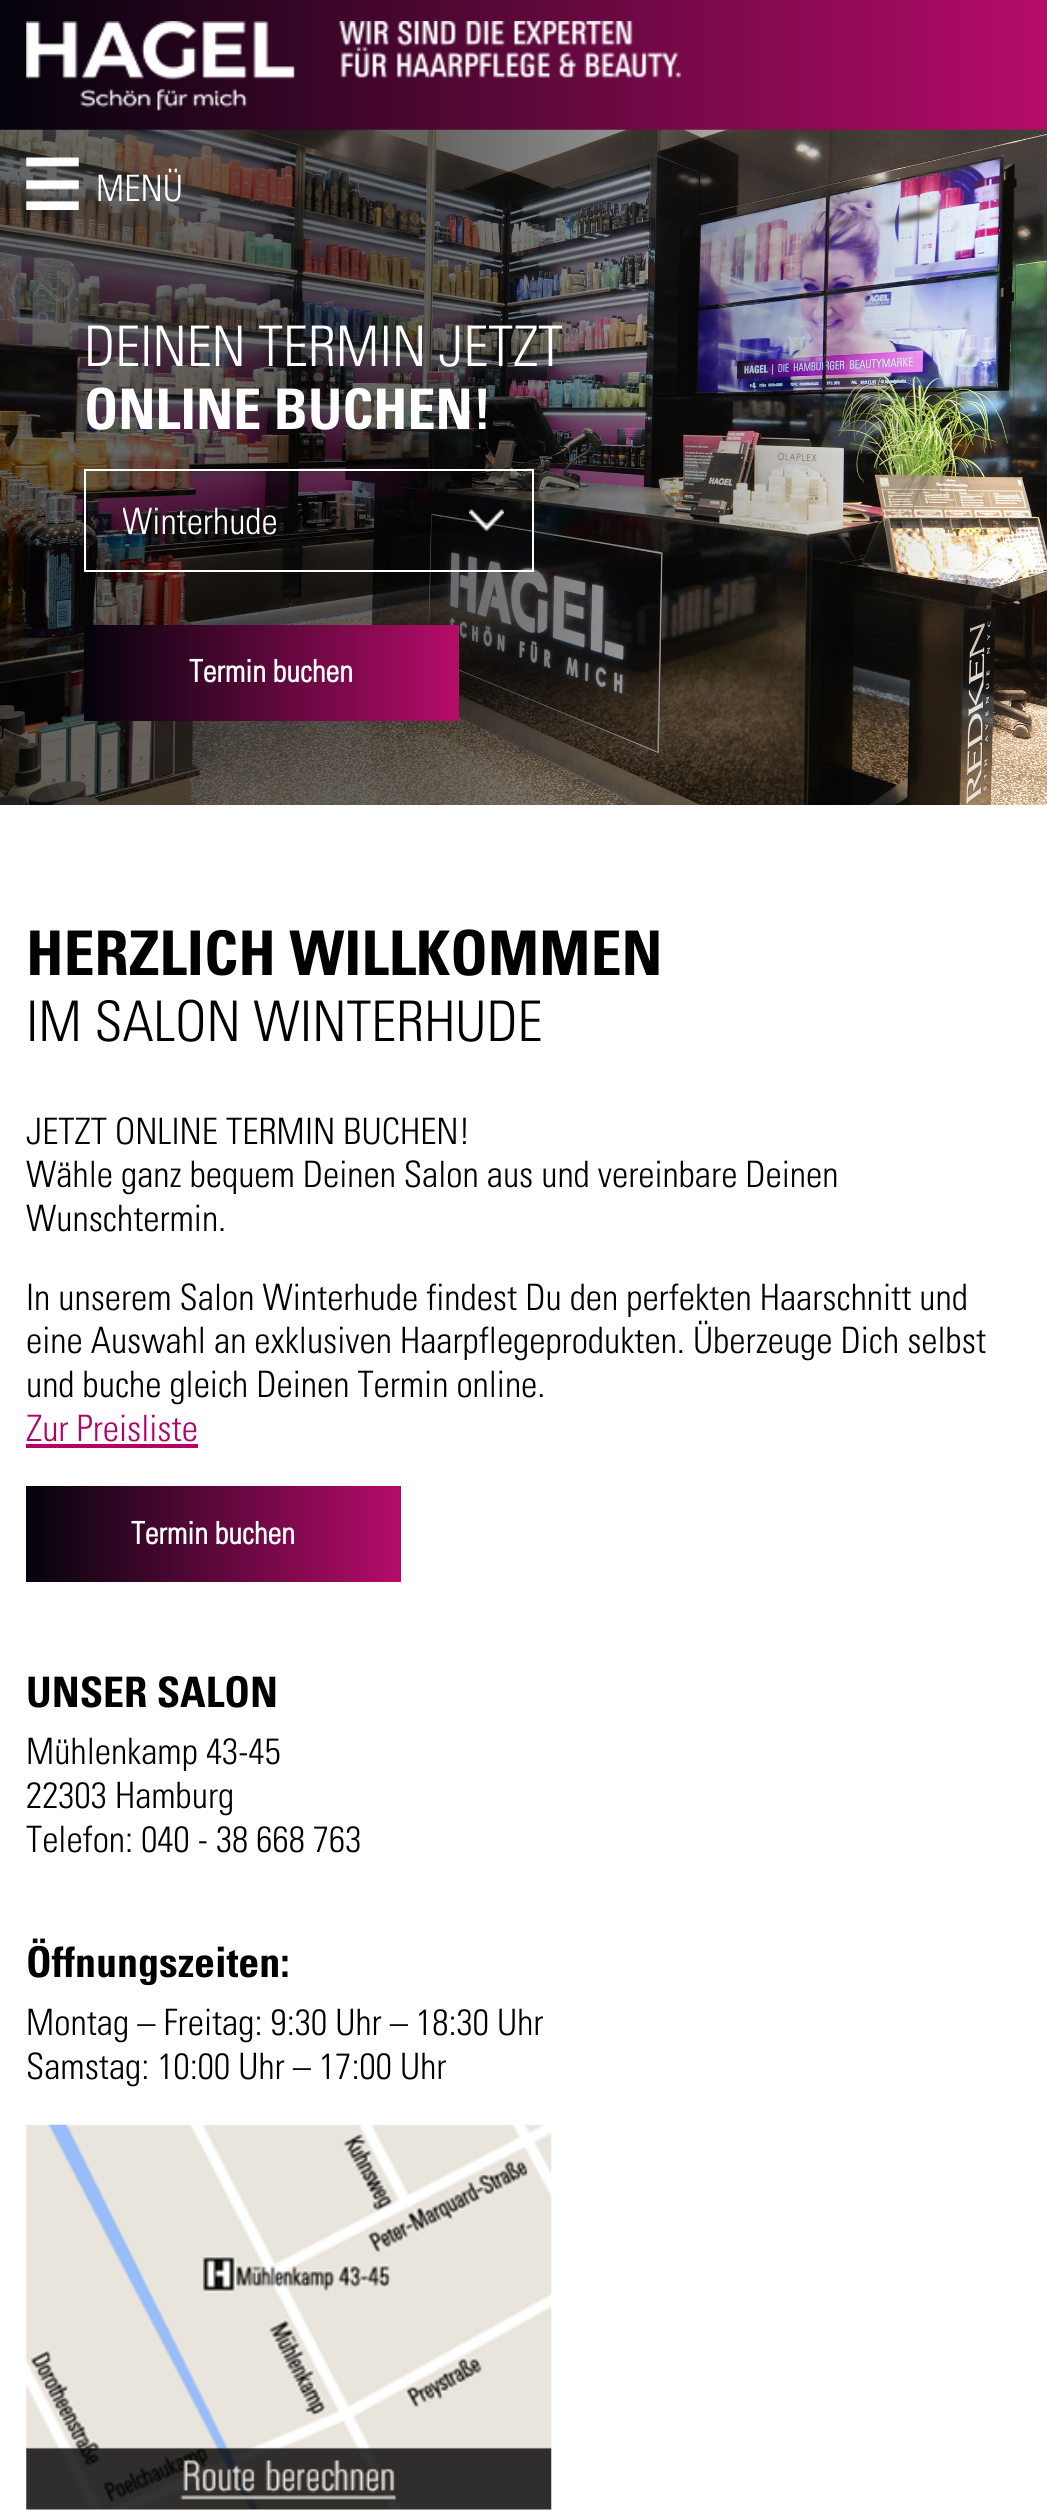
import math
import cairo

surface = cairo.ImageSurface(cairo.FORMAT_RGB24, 1047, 2512)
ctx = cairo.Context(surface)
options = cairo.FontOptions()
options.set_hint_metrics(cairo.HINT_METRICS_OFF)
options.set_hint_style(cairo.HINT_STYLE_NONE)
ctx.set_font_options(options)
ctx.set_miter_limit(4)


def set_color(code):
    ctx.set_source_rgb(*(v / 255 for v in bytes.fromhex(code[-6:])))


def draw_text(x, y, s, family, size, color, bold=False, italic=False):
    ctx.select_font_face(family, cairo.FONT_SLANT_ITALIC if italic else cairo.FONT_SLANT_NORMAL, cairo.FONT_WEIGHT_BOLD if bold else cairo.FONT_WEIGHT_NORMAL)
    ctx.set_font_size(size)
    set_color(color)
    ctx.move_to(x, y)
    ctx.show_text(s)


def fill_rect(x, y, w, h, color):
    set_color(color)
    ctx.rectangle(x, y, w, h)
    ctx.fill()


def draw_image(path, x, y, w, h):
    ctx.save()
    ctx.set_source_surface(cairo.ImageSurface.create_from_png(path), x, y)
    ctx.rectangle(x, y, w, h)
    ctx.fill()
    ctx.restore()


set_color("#ffffff")
ctx.paint()
gradient = cairo.LinearGradient(0, 65, 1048, 65)
gradient.add_color_stop_rgba(0, 0.012, 0.012, 0.043, 1)
gradient.add_color_stop_rgba(1, 0.71, 0.047, 0.412, 1)
ctx.set_source(gradient)
ctx.rectangle(0, 0, 1047, 130)
ctx.fill()
draw_image("assets/img1.png", 26, 21, 655, 90)
draw_image("assets/img3.png", 0, 129, 1047, 676)
draw_image("assets/img2.png", 26, 157, 53, 53)
draw_text(96, 201, "MENÜ", "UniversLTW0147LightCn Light", 36.4, "#ffffff")
draw_text(84, 366, "DEINEN TERMIN JETZT", "UniversLTW0147LightCn Light", 56, "#ffffff")
draw_text(84, 429, "ONLINE BUCHEN!", "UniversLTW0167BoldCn", 56, "#ffffff", bold=True)
draw_image("assets/img4.png", 469, 509, 35, 22)
ctx.rectangle(85, 470, 448, 101)
ctx.stroke()
ctx.save()
ctx.rectangle(123, 499, 372, 44)
ctx.clip()
draw_text(122, 534, "Winterhude", "UniversLTW0147LightCn Light", 36.4, "#ffffff")
ctx.restore()
gradient = cairo.LinearGradient(84, 673, 459, 673)
gradient.add_color_stop_rgba(0, 0.012, 0.012, 0.043, 1)
gradient.add_color_stop_rgba(1, 0.71, 0.047, 0.412, 1)
ctx.set_source(gradient)
ctx.rectangle(84, 625, 375, 96)
ctx.fill()
draw_text(189, 682, "Termin buchen", "UniversLTW0147LightCn", 30.75, "#ffffff", bold=True)
draw_text(26, 975, "HERZLICH WILLKOMMEN", "UniversLTW0167BoldCn", 61.6, "#000000", bold=True)
draw_text(26, 1041, "IM SALON WINTERHUDE", "UniversLTW0147LightCn Light", 56, "#000000")
draw_text(26, 1144, "JETZT ONLINE TERMIN BUCHEN!", "UniversLTW0147LightCn Light", 36.4, "#000000")
draw_text(26, 1187, "Wähle ganz bequem Deinen Salon aus und vereinbare Deinen", "UniversLTW0147LightCn Light", 36.4, "#000000")
draw_text(26, 1231, "Wunschtermin.", "UniversLTW0147LightCn Light", 36.4, "#000000")
draw_text(26, 1310, "In unserem Salon Winterhude findest Du den perfekten Haarschnitt und", "UniversLTW0147LightCn Light", 36.4, "#000000")
draw_text(26, 1353, "eine Auswahl an exklusiven Haarpflegeprodukten. Überzeuge Dich selbst", "UniversLTW0147LightCn Light", 36.4, "#000000")
draw_text(26, 1397, "und buche gleich Deinen Termin online.", "UniversLTW0147LightCn Light", 36.4, "#000000")
draw_text(26, 1441, "Zur Preisliste", "UniversLTW0147LightCn Light", 36.4, "#b50068")
fill_rect(26, 1444, 172, 4, "#b50068")
gradient = cairo.LinearGradient(26, 1534, 401, 1534)
gradient.add_color_stop_rgba(0, 0.012, 0.012, 0.043, 1)
gradient.add_color_stop_rgba(1, 0.71, 0.047, 0.412, 1)
ctx.set_source(gradient)
ctx.rectangle(26, 1486, 375, 96)
ctx.fill()
draw_text(131, 1544, "Termin buchen", "UniversLTW0147LightCn", 30.75, "#ffffff", bold=True)
draw_text(26, 1707, "UNSER SALON", "UniversLTW0167BoldCn", 42, "#000000", bold=True)
draw_text(26, 1764, "Mühlenkamp 43-45", "UniversLTW0147LightCn Light", 36.4, "#000000")
draw_text(26, 1808, "22303 Hamburg", "UniversLTW0147LightCn Light", 36.4, "#000000")
draw_text(26, 1852, "Telefon: 040 - 38 668 763", "UniversLTW0147LightCn Light", 36.4, "#000000")
draw_text(26, 1977, "Öffnungszeiten:", "UniversLTW0167BoldCn", 42, "#000000", bold=True)
draw_text(26, 2035, "Montag – Freitag: 9:30 Uhr – 18:30 Uhr", "UniversLTW0147LightCn Light", 36.4, "#000000")
draw_text(26, 2079, "Samstag: 10:00 Uhr – 17:00 Uhr", "UniversLTW0147LightCn Light", 36.4, "#000000")
draw_image("assets/img5.png", 26, 2124, 526, 386)
surface.write_to_png("output.png")
